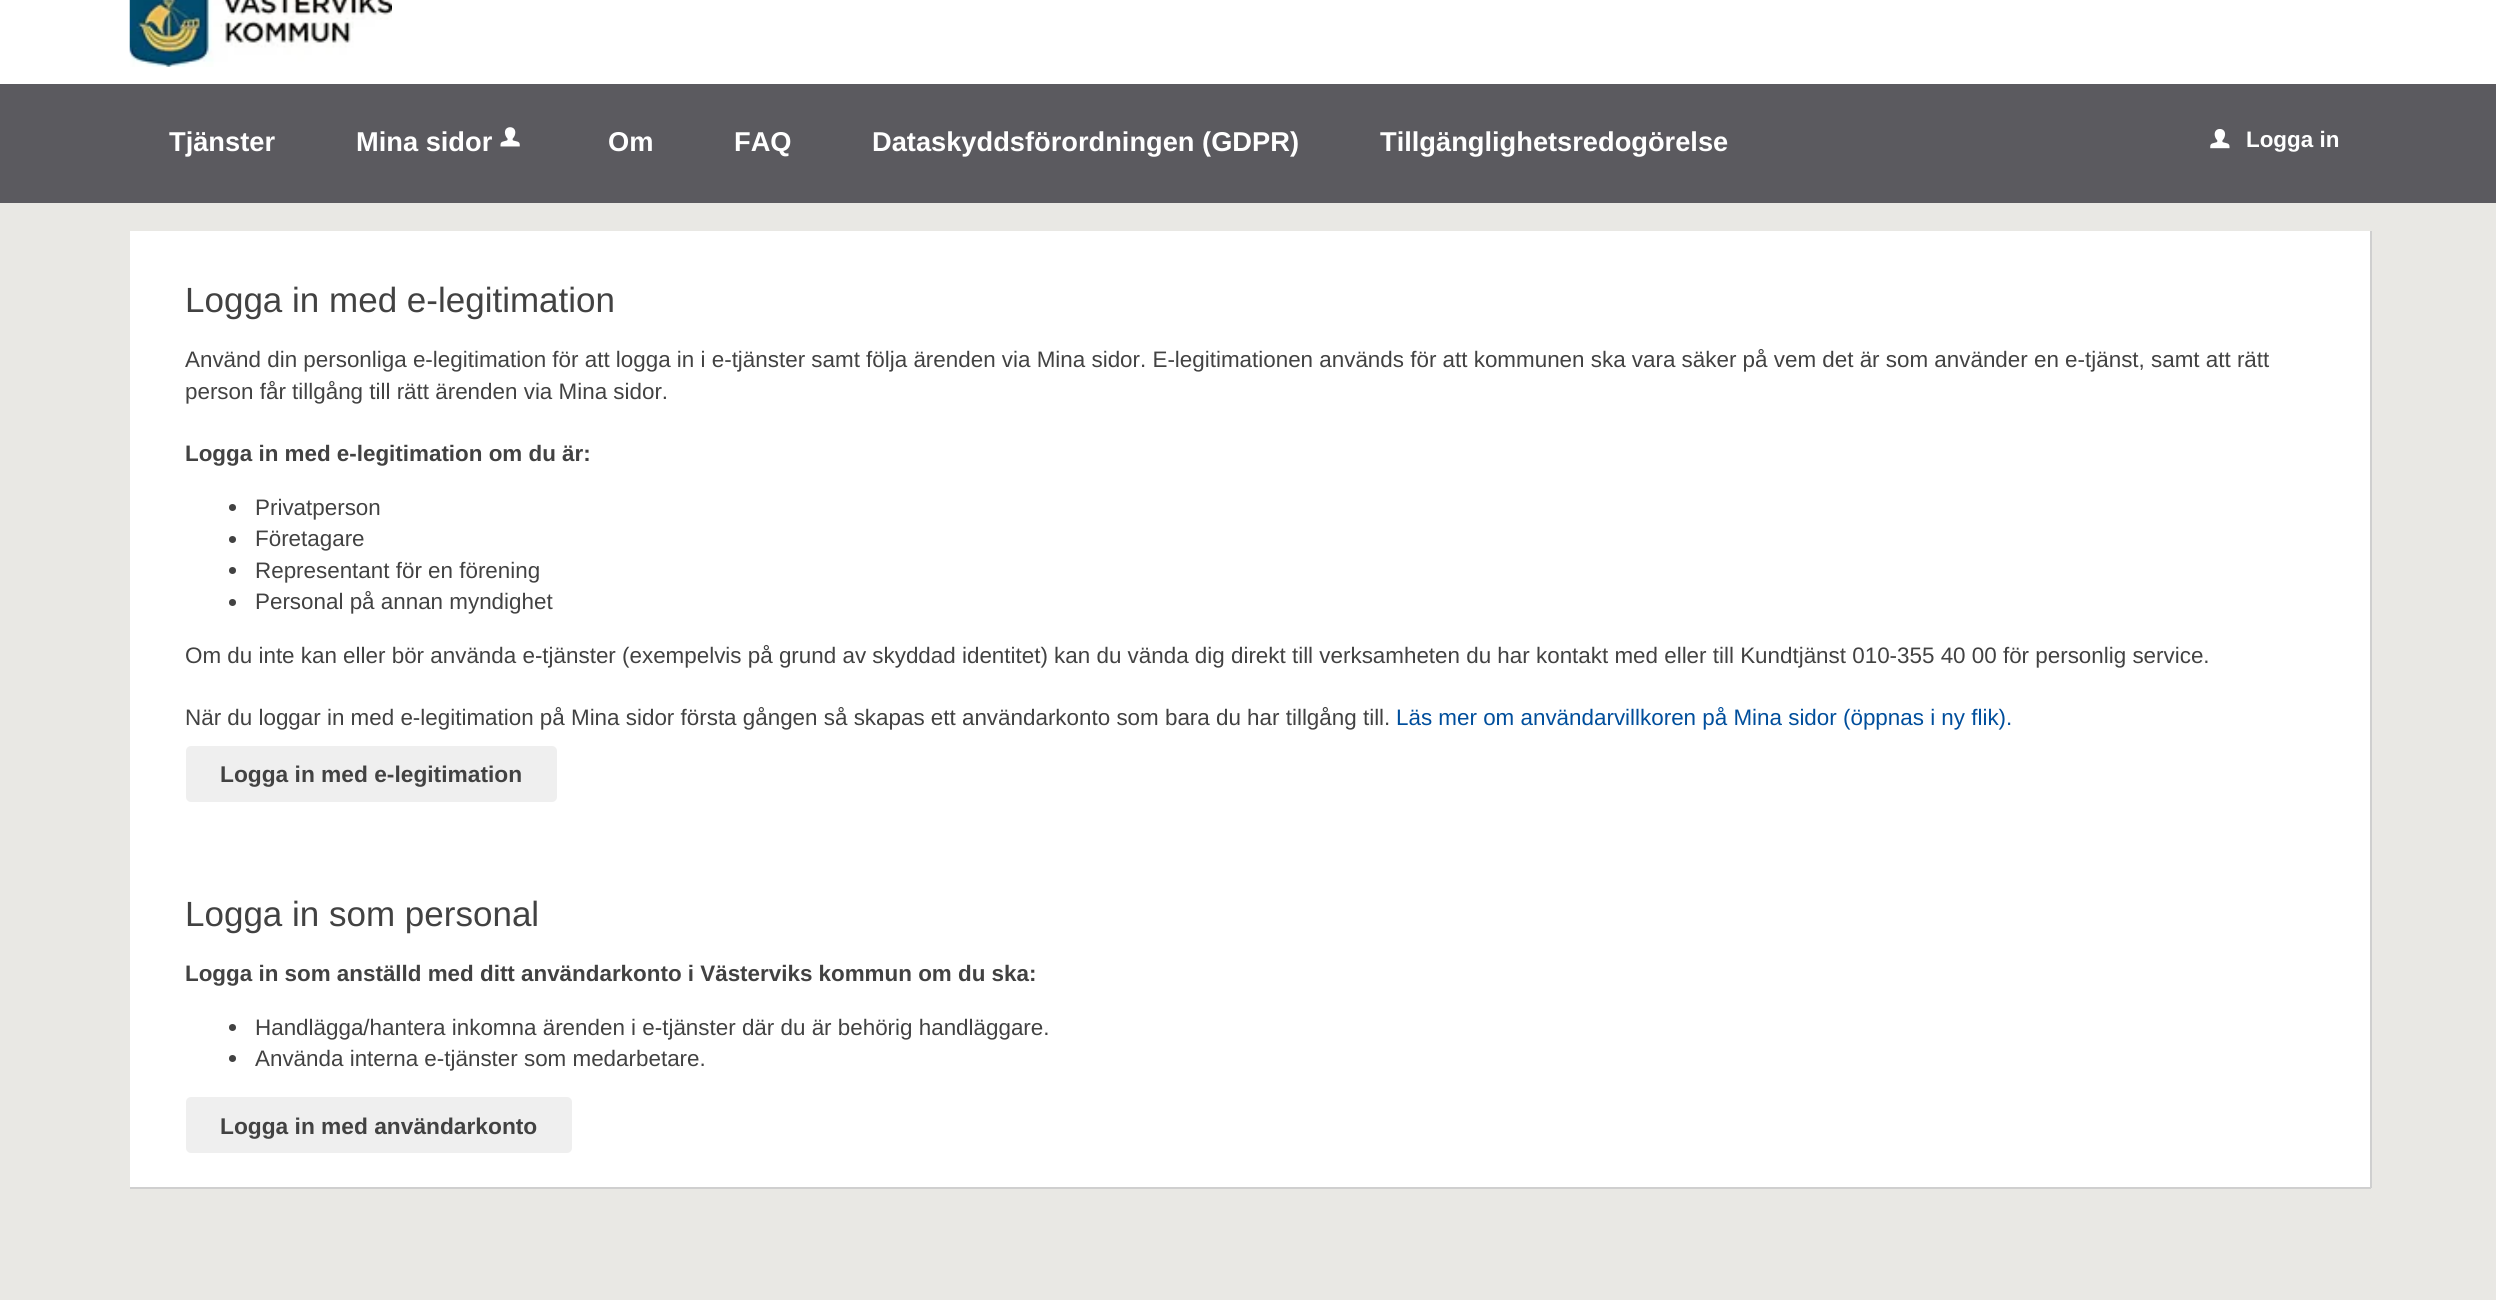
import math
import cairo

surface = cairo.ImageSurface(cairo.FORMAT_RGB24, 2496, 1300)
ctx = cairo.Context(surface)
options = cairo.FontOptions()
options.set_hint_metrics(cairo.HINT_METRICS_OFF)
options.set_hint_style(cairo.HINT_STYLE_NONE)
ctx.set_font_options(options)
ctx.set_miter_limit(4)


def set_color(code):
    ctx.set_source_rgb(*(v / 255 for v in bytes.fromhex(code[-6:])))


def draw_text(x, y, s, family, size, color, bold=False, italic=False):
    ctx.select_font_face(family, cairo.FONT_SLANT_ITALIC if italic else cairo.FONT_SLANT_NORMAL, cairo.FONT_WEIGHT_BOLD if bold else cairo.FONT_WEIGHT_NORMAL)
    ctx.set_font_size(size)
    set_color(color)
    ctx.move_to(x, y)
    ctx.show_text(s)


def fill_rect(x, y, w, h, color):
    set_color(color)
    ctx.rectangle(x, y, w, h)
    ctx.fill()


def rounded_rect(x, y, w, h, r):
    ctx.new_sub_path()
    for i, (u, v) in enumerate([(x + w - r, y + h - r), (x + r, y + h - r), (x + r, y + r), (x + w - r, y + r)]):
        ctx.arc(u, v, r, i * math.pi / 2, (i + 1) * math.pi / 2)
    ctx.close_path()


def draw_image(path, x, y, w, h):
    ctx.save()
    ctx.set_source_surface(cairo.ImageSurface.create_from_png(path), x, y)
    ctx.rectangle(x, y, w, h)
    ctx.fill()
    ctx.restore()


set_color("#e9e8e4")
ctx.paint()
fill_rect(0, 0, 2496, 84, "#ffffff")
draw_image("assets/img1.png", 129, 0, 263, 67)
fill_rect(0, 84, 2496, 119, "#5b5a5f")
draw_text(169, 151, "Tjänster", "Liberation Sans", 27.25, "#ffffff", bold=True)
draw_text(356, 151, "Mina sidor", "Liberation Sans", 27.25, "#ffffff", bold=True)
draw_image("assets/img2.png", 500, 127, 20, 20)
draw_text(608, 151, "Om", "Liberation Sans", 27.25, "#ffffff", bold=True)
draw_text(734, 151, "FAQ", "Liberation Sans", 27.25, "#ffffff", bold=True)
draw_text(872, 151, "Dataskyddsförordningen (GDPR)", "Liberation Sans", 27.25, "#ffffff", bold=True)
draw_text(1380, 151, "Tillgänglighetsredogörelse", "Liberation Sans", 27.25, "#ffffff", bold=True)
draw_image("assets/img3.png", 2210, 129, 20, 20)
draw_text(2246, 147, "Logga in", "Liberation Sans", 22.4, "#ffffff", bold=True)
fill_rect(130, 231, 2240, 956, "#ffffff")
fill_rect(2370, 231, 2, 957, "#cfcfcf")
fill_rect(130, 1187, 2241, 2, "#cfcfcf")
draw_text(185, 312, "Logga in med e-legitimation", "Liberation Sans", 35, "#424242")
draw_text(185, 367, "Använd din personliga e-legitimation för att logga in i e-tjänster samt följa ärenden via Mina sidor. E-legitimationen används för att kommunen ska vara säker på vem det är som använder en e-tjänst, samt att rätt", "Liberation Sans", 22.4, "#424242")
draw_text(185, 399, "person får tillgång till rätt ärenden via Mina sidor.", "Liberation Sans", 22.4, "#424242")
draw_text(185, 461, "Logga in med e-legitimation om du är:", "Liberation Sans", 22.4, "#424242", bold=True)
ctx.new_path()
ctx.arc(232.5, 507.5, 3.5, 0, 2 * math.pi)
ctx.fill()
draw_text(255, 515, "Privatperson", "Liberation Sans", 22.4, "#424242")
ctx.new_path()
ctx.arc(232.5, 539.5, 3.5, 0, 2 * math.pi)
ctx.fill()
draw_text(255, 546, "Företagare", "Liberation Sans", 22.4, "#424242")
ctx.new_path()
ctx.arc(232.5, 570.5, 3.5, 0, 2 * math.pi)
ctx.fill()
draw_text(255, 578, "Representant för en förening", "Liberation Sans", 22.4, "#424242")
ctx.new_path()
ctx.arc(232.5, 602.5, 3.5, 0, 2 * math.pi)
ctx.fill()
draw_text(255, 609, "Personal på annan myndighet", "Liberation Sans", 22.4, "#424242")
draw_text(185, 663, "Om du inte kan eller bör använda e-tjänster (exempelvis på grund av skyddad identitet) kan du vända dig direkt till verksamheten du har kontakt med eller till Kundtjänst 010-355 40 00 för personlig service.", "Liberation Sans", 22.4, "#424242")
draw_text(185, 725, "När du loggar in med e-legitimation på Mina sidor första gången så skapas ett användarkonto som bara du har tillgång till.", "Liberation Sans", 22.4, "#424242")
draw_text(1396, 725, "Läs mer om användarvillkoren på Mina sidor (öppnas i ny flik).", "Liberation Sans", 22.4, "#004e9c")
set_color("#efefef")
rounded_rect(186, 746, 371, 56, 5)
ctx.fill()
draw_text(220, 782, "Logga in med e-legitimation", "Liberation Sans", 22.75, "#424242", bold=True)
draw_text(185, 926, "Logga in som personal", "Liberation Sans", 35, "#424242")
draw_text(185, 981, "Logga in som anställd med ditt användarkonto i Västerviks kommun om du ska:", "Liberation Sans", 22.4, "#424242", bold=True)
ctx.new_path()
ctx.arc(232.5, 1027.5, 3.5, 0, 2 * math.pi)
ctx.fill()
draw_text(255, 1035, "Handlägga/hantera inkomna ärenden i e-tjänster där du är behörig handläggare.", "Liberation Sans", 22.4, "#424242")
ctx.new_path()
ctx.arc(232.5, 1058.5, 3.5, 0, 2 * math.pi)
ctx.fill()
draw_text(255, 1066, "Använda interna e-tjänster som medarbetare.", "Liberation Sans", 22.4, "#424242")
set_color("#efefef")
rounded_rect(186, 1097, 386, 56, 5)
ctx.fill()
draw_text(220, 1134, "Logga in med användarkonto", "Liberation Sans", 22.75, "#424242", bold=True)
surface.write_to_png("output.png")
